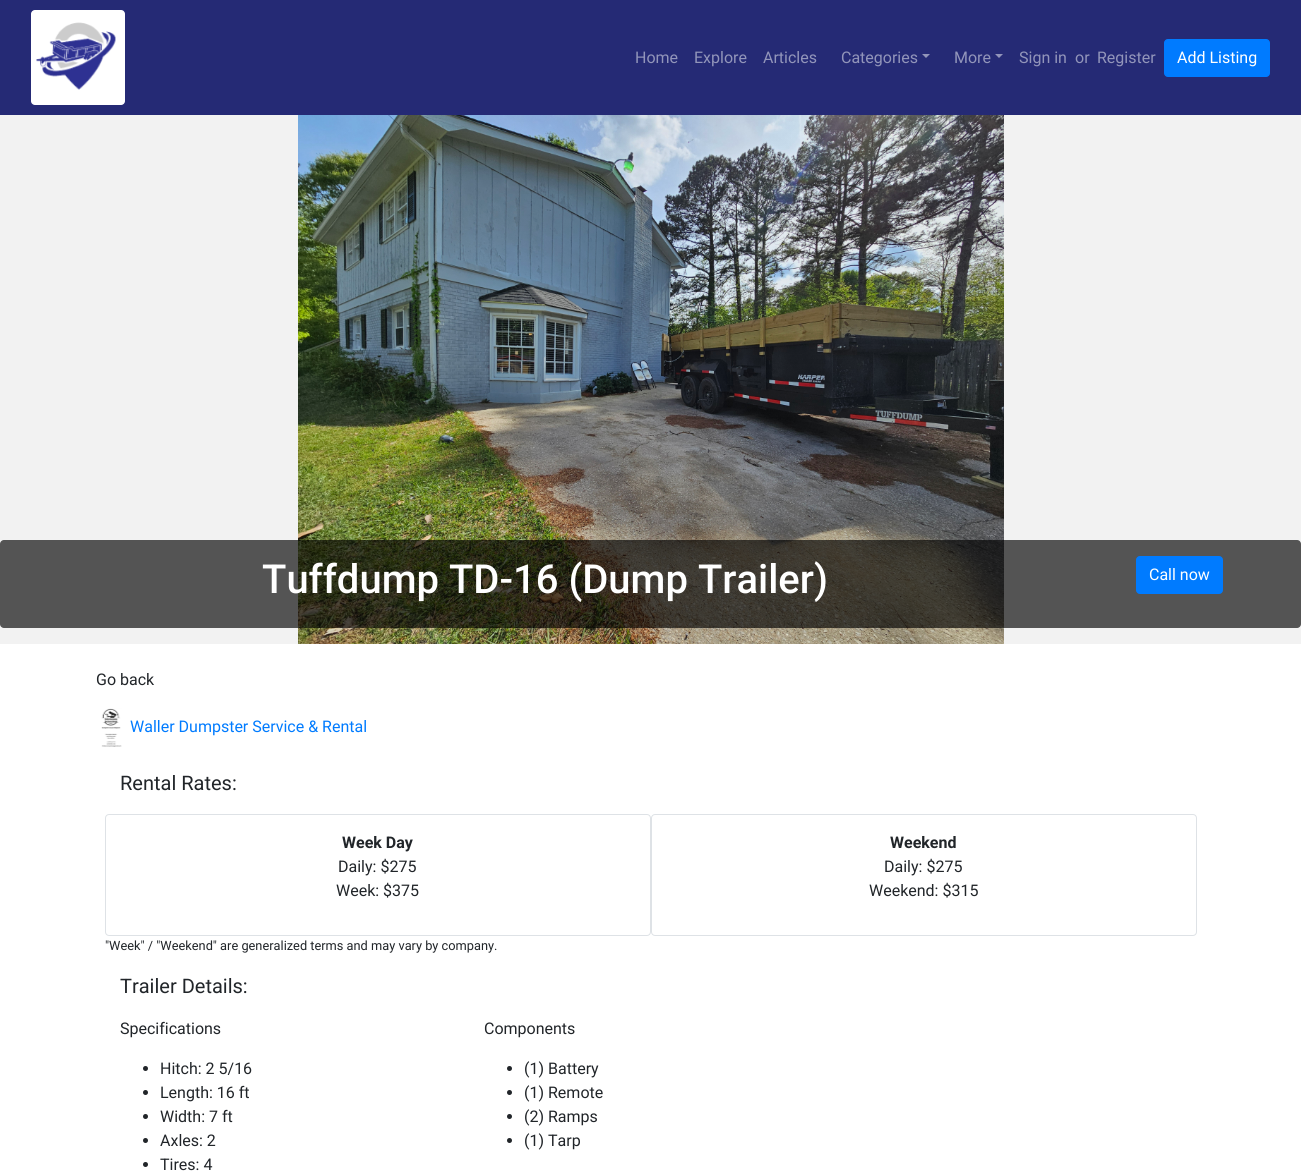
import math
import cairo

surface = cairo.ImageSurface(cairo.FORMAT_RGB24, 1301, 1176)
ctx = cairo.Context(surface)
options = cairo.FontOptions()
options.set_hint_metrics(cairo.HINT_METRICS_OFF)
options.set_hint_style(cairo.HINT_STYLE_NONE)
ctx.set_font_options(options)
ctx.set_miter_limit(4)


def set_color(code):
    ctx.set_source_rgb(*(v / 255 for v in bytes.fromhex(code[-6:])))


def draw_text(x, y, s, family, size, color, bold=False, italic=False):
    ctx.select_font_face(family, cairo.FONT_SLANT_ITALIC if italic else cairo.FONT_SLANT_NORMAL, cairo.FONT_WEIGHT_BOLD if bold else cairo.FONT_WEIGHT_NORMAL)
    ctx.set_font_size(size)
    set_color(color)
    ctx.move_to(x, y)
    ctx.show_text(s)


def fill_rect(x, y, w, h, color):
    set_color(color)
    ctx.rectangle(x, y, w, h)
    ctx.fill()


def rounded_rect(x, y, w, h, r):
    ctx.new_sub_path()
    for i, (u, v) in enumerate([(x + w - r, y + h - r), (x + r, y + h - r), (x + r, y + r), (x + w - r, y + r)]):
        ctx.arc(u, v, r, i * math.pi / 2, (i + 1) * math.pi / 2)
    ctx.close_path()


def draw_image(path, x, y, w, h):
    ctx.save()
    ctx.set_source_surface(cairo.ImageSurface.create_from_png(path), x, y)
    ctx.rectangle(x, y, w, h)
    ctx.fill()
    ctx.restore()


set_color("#ffffff")
ctx.paint()
fill_rect(0, 0, 1301, 115, "#252a75")
set_color("#ffffff")
rounded_rect(31, 10, 94, 95, 4)
ctx.fill()
draw_image("assets/img1.png", 36, 22, 80, 68)
draw_text(635, 63, "Home", "Roboto", 16, "#9295ba")
draw_text(694, 63, "Explore", "Roboto", 16, "#9295ba")
draw_text(763, 63, "Articles", "Roboto", 16, "#9295ba")
draw_text(841, 63, "Categories", "Roboto", 16, "#9295ba")
ctx.new_path()
ctx.move_to(922, 54)
ctx.line_to(930, 54)
ctx.line_to(926, 58)
ctx.close_path()
ctx.fill()
draw_text(954, 63, "More", "Roboto", 16, "#9295ba")
ctx.new_path()
ctx.move_to(995, 54)
ctx.line_to(1003, 54)
ctx.line_to(999, 58)
ctx.close_path()
ctx.fill()
draw_text(1019, 63, "Sign in", "Roboto", 16, "#9295ba")
draw_text(1075, 63, "or", "Roboto", 16, "#9295ba")
draw_text(1097, 63, "Register", "Roboto", 16, "#9295ba")
set_color("#007bff")
rounded_rect(1164.5, 39.5, 105, 37, 3.5)
ctx.fill_preserve()
ctx.set_line_width(1)
ctx.stroke()
draw_text(1177, 63, "Add Listing", "Roboto", 16, "#ffffff")
draw_image("assets/img2.png", 0, 115, 1301, 529)
ctx.set_source_rgba(0, 0, 0, 0.65)
rounded_rect(0, 540, 1301, 88, 4)
ctx.fill()
draw_text(262, 593, "Tuffdump TD-16 (Dump Trailer)", "Roboto Medium", 40, "#ffffff")
set_color("#007bff")
rounded_rect(1136.5, 556.5, 86, 37, 3.5)
ctx.fill_preserve()
ctx.stroke()
draw_text(1149, 580, "Call now", "Roboto", 16, "#ffffff")
draw_text(96, 685, "Go back", "Roboto", 16, "#212529")
draw_image("assets/img3.png", 101, 708, 21, 39)
draw_text(130, 732, "Waller Dumpster Service & Rental", "Roboto", 16, "#007bff")
draw_text(120, 790, "Rental Rates:", "Roboto", 20, "#212529")
rounded_rect(105.5, 814.5, 545, 121, 3.5)
set_color("#dee2e6")
ctx.stroke()
draw_text(342, 848, "Week Day", "Roboto", 16, "#212529", bold=True)
draw_text(338, 872, "Daily: $275", "Roboto", 16, "#212529")
draw_text(336, 896, "Week: $375", "Roboto", 16, "#212529")
rounded_rect(651.5, 814.5, 545, 121, 3.5)
set_color("#dee2e6")
ctx.stroke()
draw_text(890, 848, "Weekend", "Roboto", 16, "#212529", bold=True)
draw_text(884, 872, "Daily: $275", "Roboto", 16, "#212529")
draw_text(869, 896, "Weekend: $315", "Roboto", 16, "#212529")
draw_text(105, 950, "\"Week\" / \"Weekend\" are generalized terms and may vary by company.", "Roboto", 12.8, "#212529")
draw_text(120, 993, "Trailer Details:", "Roboto", 20, "#212529")
draw_text(120, 1034, "Specifications", "Roboto", 16, "#212529")
ctx.new_path()
ctx.arc(145.5, 1068.5, 2.5, 0, 2 * math.pi)
ctx.fill()
draw_text(160, 1074, "Hitch: 2 5/16", "Roboto", 16, "#212529")
ctx.new_path()
ctx.arc(145.5, 1092.5, 2.5, 0, 2 * math.pi)
ctx.fill()
draw_text(160, 1098, "Length: 16 ft", "Roboto", 16, "#212529")
ctx.new_path()
ctx.arc(145.5, 1116.5, 2.5, 0, 2 * math.pi)
ctx.fill()
draw_text(160, 1122, "Width: 7 ft", "Roboto", 16, "#212529")
ctx.new_path()
ctx.arc(145.5, 1140.5, 2.5, 0, 2 * math.pi)
ctx.fill()
draw_text(160, 1146, "Axles: 2", "Roboto", 16, "#212529")
ctx.new_path()
ctx.arc(145.5, 1164.5, 2.5, 0, 2 * math.pi)
ctx.fill()
draw_text(160, 1170, "Tires: 4", "Roboto", 16, "#212529")
draw_text(484, 1034, "Components", "Roboto", 16, "#212529")
ctx.new_path()
ctx.arc(509.5, 1068.5, 2.5, 0, 2 * math.pi)
ctx.fill()
draw_text(524, 1074, "(1) Battery", "Roboto", 16, "#212529")
ctx.new_path()
ctx.arc(509.5, 1092.5, 2.5, 0, 2 * math.pi)
ctx.fill()
draw_text(524, 1098, "(1) Remote", "Roboto", 16, "#212529")
ctx.new_path()
ctx.arc(509.5, 1116.5, 2.5, 0, 2 * math.pi)
ctx.fill()
draw_text(524, 1122, "(2) Ramps", "Roboto", 16, "#212529")
ctx.new_path()
ctx.arc(509.5, 1140.5, 2.5, 0, 2 * math.pi)
ctx.fill()
draw_text(524, 1146, "(1) Tarp", "Roboto", 16, "#212529")
surface.write_to_png("output.png")
